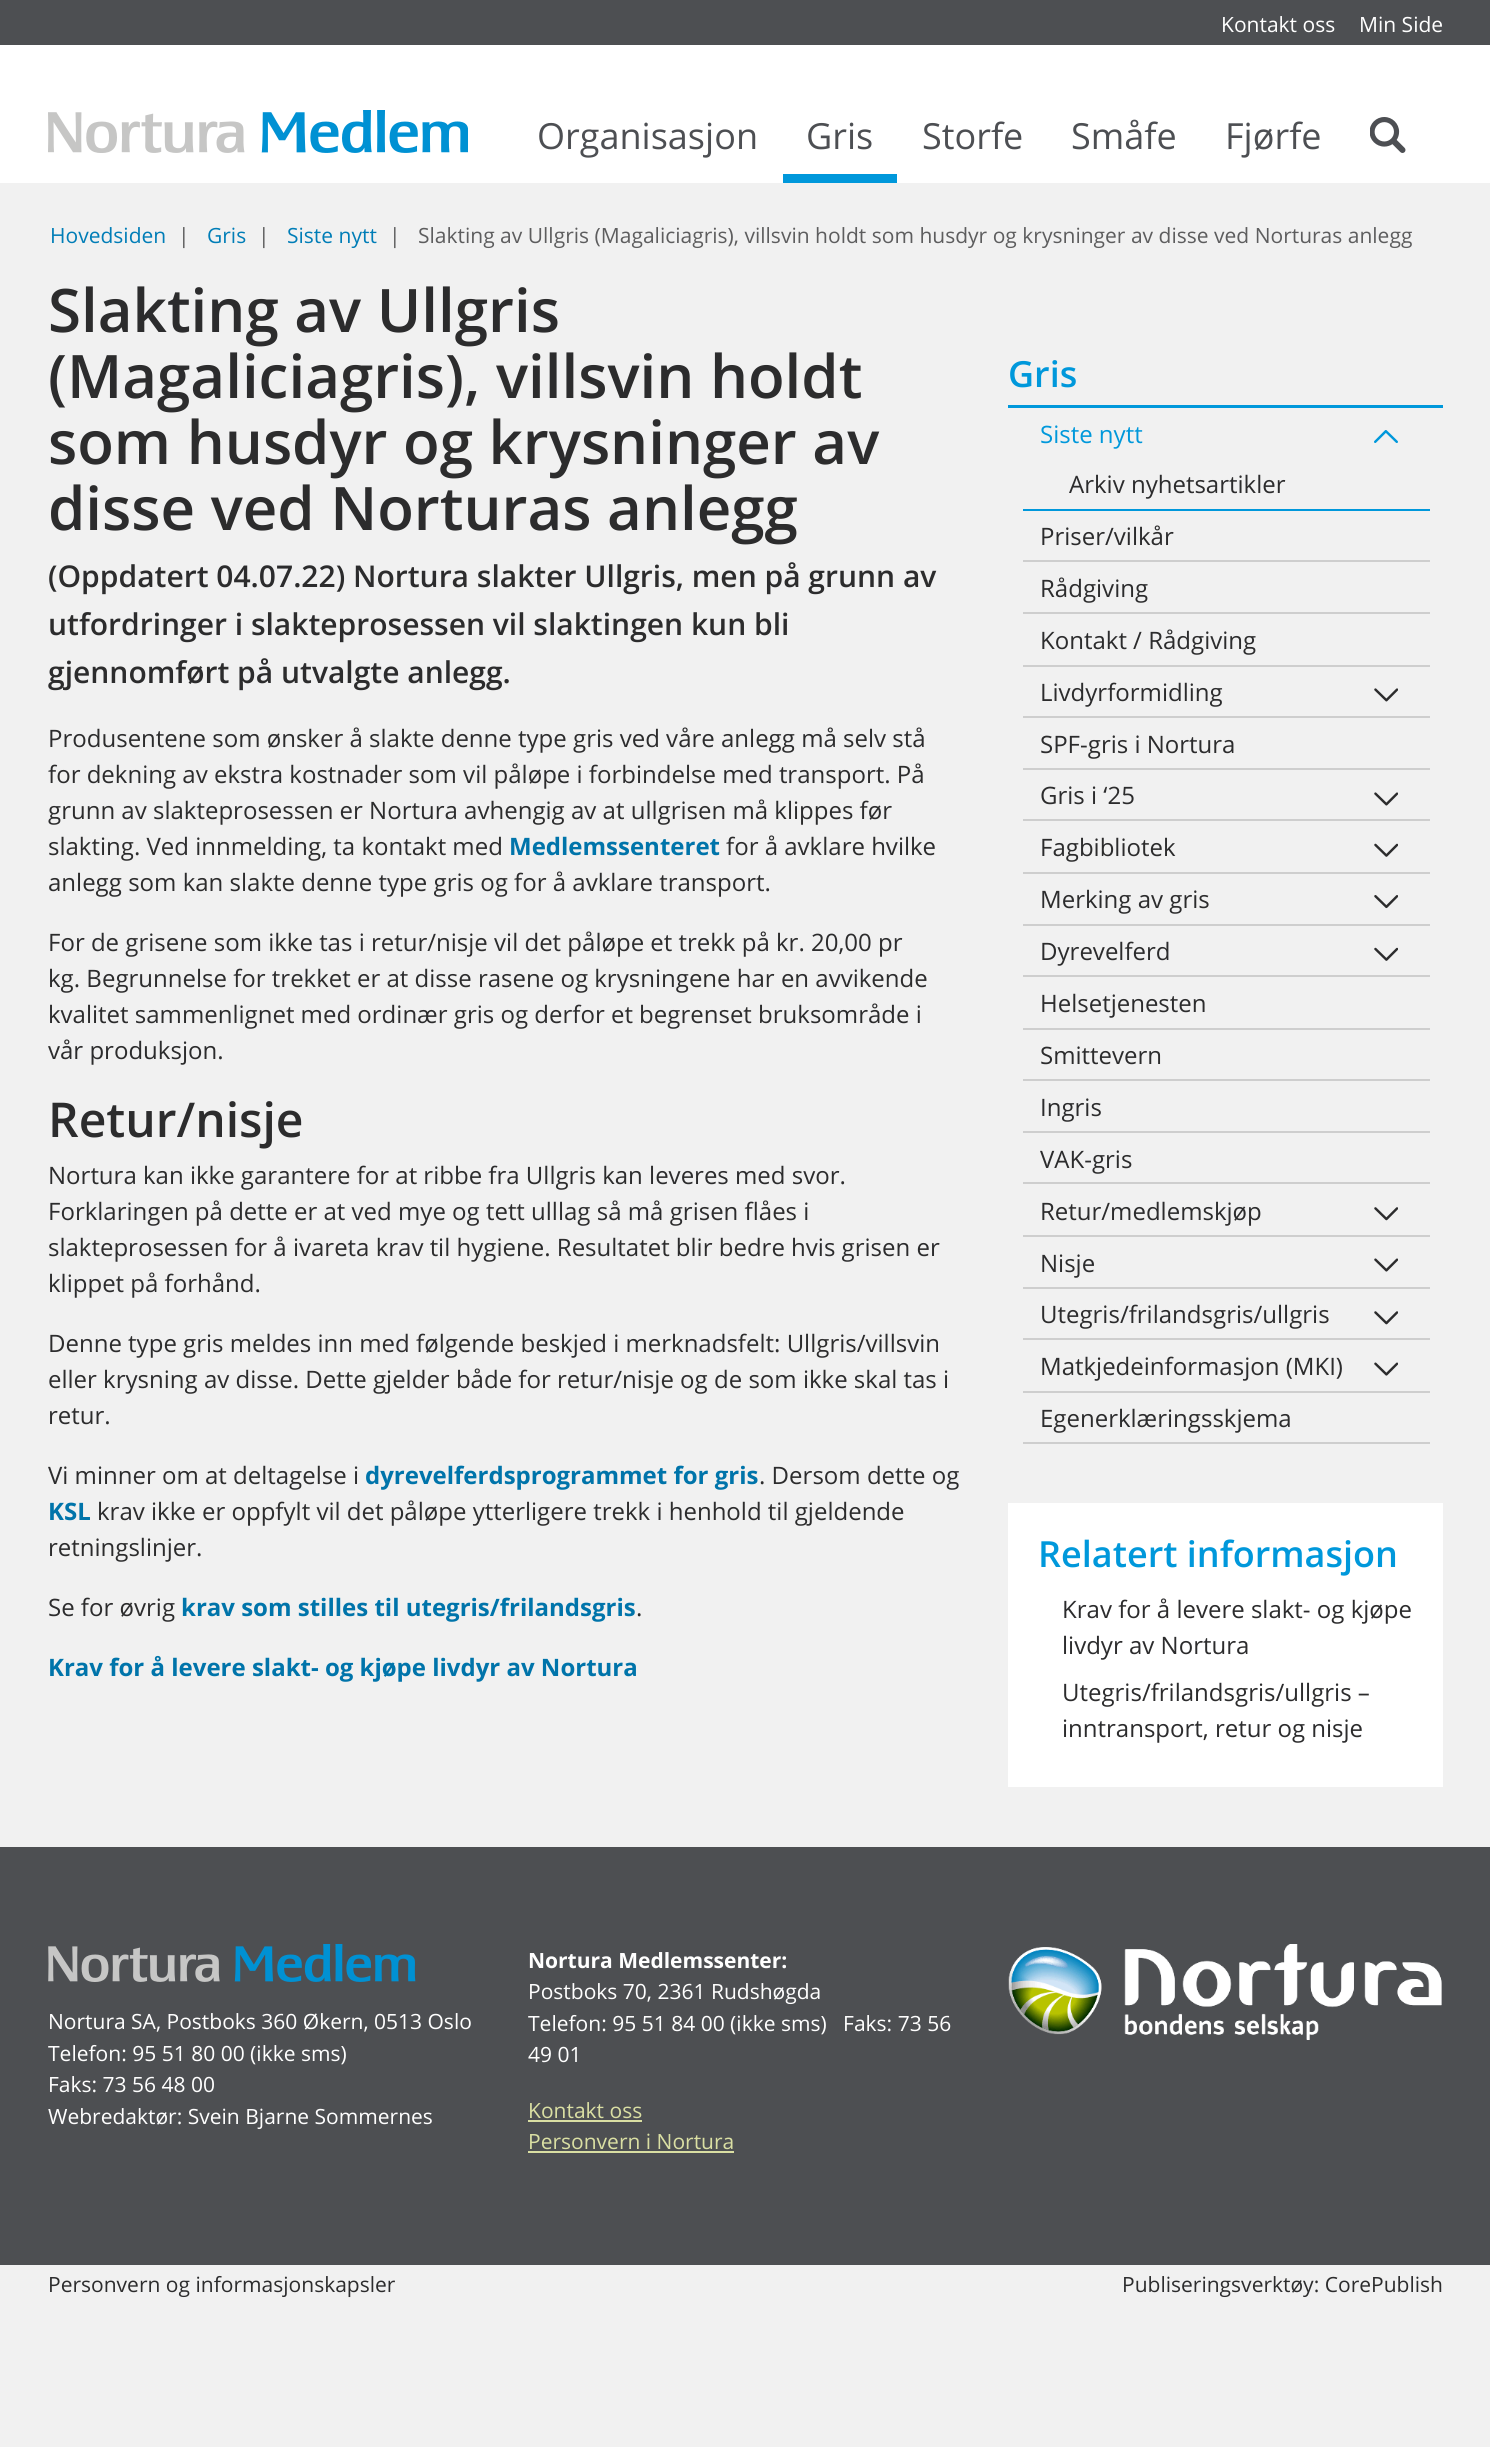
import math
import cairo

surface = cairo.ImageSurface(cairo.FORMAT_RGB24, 1490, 2447)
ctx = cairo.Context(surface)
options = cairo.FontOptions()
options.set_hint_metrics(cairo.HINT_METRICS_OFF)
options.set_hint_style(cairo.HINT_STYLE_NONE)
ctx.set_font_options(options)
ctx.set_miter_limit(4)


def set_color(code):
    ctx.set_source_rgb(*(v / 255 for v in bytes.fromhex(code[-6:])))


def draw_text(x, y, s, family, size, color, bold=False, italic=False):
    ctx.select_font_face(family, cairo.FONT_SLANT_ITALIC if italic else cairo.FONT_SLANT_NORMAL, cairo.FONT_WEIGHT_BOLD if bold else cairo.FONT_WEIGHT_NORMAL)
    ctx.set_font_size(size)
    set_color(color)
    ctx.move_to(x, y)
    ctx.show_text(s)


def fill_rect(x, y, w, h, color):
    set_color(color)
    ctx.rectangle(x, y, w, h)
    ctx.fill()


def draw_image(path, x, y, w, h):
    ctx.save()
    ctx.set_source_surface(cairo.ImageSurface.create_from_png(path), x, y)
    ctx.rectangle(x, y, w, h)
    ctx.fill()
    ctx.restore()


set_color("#f1f1f1")
ctx.paint()
fill_rect(0, 0, 1490, 45, "#4d4f52")
draw_text(1221, 32, "Kontakt oss", "Open Sans", 21, "#ffffff")
draw_text(1359, 32, "Min Side", "Open Sans", 21, "#ffffff")
fill_rect(0, 45, 1490, 138, "#ffffff")
draw_image("assets/img1.png", 48, 110, 420, 43)
draw_text(537, 149, "Organisasjon", "Open Sans", 36, "#4d4f53")
draw_text(806, 149, "Gris", "Open Sans", 36, "#4d4f53")
fill_rect(783, 174, 114, 9, "#0098db")
draw_text(922, 149, "Storfe", "Open Sans", 36, "#4d4f53")
draw_text(1071, 149, "Småfe", "Open Sans", 36, "#4d4f53")
draw_text(1225, 149, "Fjørfe", "Open Sans", 36, "#4d4f53")
draw_image("assets/img2.png", 1370, 117, 36, 36)
draw_text(50, 243, "Hovedsiden", "Open Sans", 21, "#007db7")
draw_text(178, 243, "|", "Open Sans", 21, "#5d5d5e")
draw_text(207, 243, "Gris", "Open Sans", 21, "#007db7")
draw_text(258, 243, "|", "Open Sans", 21, "#5d5d5e")
draw_text(287, 243, "Siste nytt", "Open Sans", 21, "#007db7")
draw_text(389, 243, "|", "Open Sans", 21, "#5d5d5e")
draw_text(418, 243, "Slakting av Ullgris (Magaliciagris), villsvin holdt som husdyr og krysninger av disse ved Norturas anlegg", "Open Sans", 21, "#5d5d5e")
draw_text(48, 332, "Slakting av Ullgris", "Open Sans SemiBold", 60, "#2c2c2d")
draw_text(48, 398, "(Magaliciagris), villsvin holdt", "Open Sans SemiBold", 60, "#2c2c2d")
draw_text(48, 464, "som husdyr og krysninger av", "Open Sans SemiBold", 60, "#2c2c2d")
draw_text(48, 530, "disse ved Norturas anlegg", "Open Sans SemiBold", 60, "#2c2c2d")
draw_text(48, 587, "(Oppdatert 04.07.22) Nortura slakter Ullgris, men på grunn av", "Open Sans SemiBold", 30, "#2c2c2d")
draw_text(48, 635, "utfordringer i slakteprosessen vil slaktingen kun bli", "Open Sans SemiBold", 30, "#2c2c2d")
draw_text(48, 683, "gjennomført på utvalgte anlegg.", "Open Sans SemiBold", 30, "#2c2c2d")
draw_text(48, 747, "Produsentene som ønsker å slakte denne type gris ved våre anlegg må selv stå", "Open Sans", 24, "#2c2c2d")
draw_text(48, 783, "for dekning av ekstra kostnader som vil påløpe i forbindelse med transport. På", "Open Sans", 24, "#2c2c2d")
draw_text(48, 819, "grunn av slakteprosessen er Nortura avhengig av at ullgrisen må klippes før", "Open Sans", 24, "#2c2c2d")
draw_text(48, 855, "slakting. Ved innmelding, ta kontakt med", "Open Sans", 24, "#2c2c2d")
draw_text(509, 855, "Medlemssenteret", "Open Sans", 24, "#0074aa", bold=True)
draw_text(726, 855, "for å avklare hvilke", "Open Sans", 24, "#2c2c2d")
draw_text(48, 891, "anlegg som kan slakte denne type gris og for å avklare transport.", "Open Sans", 24, "#2c2c2d")
draw_text(48, 951, "For de grisene som ikke tas i retur/nisje vil det påløpe et trekk på kr. 20,00 pr", "Open Sans", 24, "#2c2c2d")
draw_text(48, 987, "kg. Begrunnelse for trekket er at disse rasene og krysningene har en avvikende", "Open Sans", 24, "#2c2c2d")
draw_text(48, 1023, "kvalitet sammenlignet med ordinær gris og derfor et begrenset bruksområde i", "Open Sans", 24, "#2c2c2d")
draw_text(48, 1059, "vår produksjon.", "Open Sans", 24, "#2c2c2d")
draw_text(48, 1137, "Retur/nisje", "Open Sans SemiBold", 48, "#2c2c2d")
draw_text(48, 1184, "Nortura kan ikke garantere for at ribbe fra Ullgris kan leveres med svor.", "Open Sans", 24, "#2c2c2d")
draw_text(48, 1220, "Forklaringen på dette er at ved mye og tett ulllag så må grisen flåes i", "Open Sans", 24, "#2c2c2d")
draw_text(48, 1256, "slakteprosessen for å ivareta krav til hygiene. Resultatet blir bedre hvis grisen er", "Open Sans", 24, "#2c2c2d")
draw_text(48, 1292, "klippet på forhånd.", "Open Sans", 24, "#2c2c2d")
draw_text(48, 1352, "Denne type gris meldes inn med følgende beskjed i merknadsfelt: Ullgris/villsvin", "Open Sans", 24, "#2c2c2d")
draw_text(48, 1388, "eller krysning av disse. Dette gjelder både for retur/nisje og de som ikke skal tas i", "Open Sans", 24, "#2c2c2d")
draw_text(48, 1424, "retur.", "Open Sans", 24, "#2c2c2d")
draw_text(48, 1484, "Vi minner om at deltagelse i", "Open Sans", 24, "#2c2c2d")
draw_text(365, 1484, "dyrevelferdsprogrammet for gris", "Open Sans", 24, "#0074aa", bold=True)
draw_text(759, 1484, ". Dersom dette og", "Open Sans", 24, "#2c2c2d")
draw_text(48, 1520, "KSL", "Open Sans", 24, "#0074aa", bold=True)
draw_text(97, 1520, "krav ikke er oppfylt vil det påløpe ytterligere trekk i henhold til gjeldende", "Open Sans", 24, "#2c2c2d")
draw_text(48, 1556, "retningslinjer.", "Open Sans", 24, "#2c2c2d")
draw_text(48, 1616, "Se for øvrig", "Open Sans", 24, "#2c2c2d")
draw_text(181, 1616, "krav som stilles til utegris/frilandsgris", "Open Sans", 24, "#0074aa", bold=True)
draw_text(636, 1616, ".", "Open Sans", 24, "#2c2c2d")
draw_text(48, 1676, "Krav for å levere slakt- og kjøpe livdyr av Nortura", "Open Sans", 24, "#0074aa", bold=True)
fill_rect(1008, 405, 435, 3, "#0098db")
draw_text(1008, 387, "Gris", "Open Sans SemiBold", 36, "#0098db")
fill_rect(1023, 509, 407, 2, "#0098db")
draw_text(1040, 443, "Siste nytt", "Open Sans", 24, "#0098db")
draw_image("assets/img3.png", 1374, 430, 24, 13)
draw_text(1069, 493, "Arkiv nyhetsartikler", "Open Sans", 24, "#2c2c2d")
fill_rect(1023, 560, 407, 2, "#cecece")
draw_text(1040, 545, "Priser/vilkår", "Open Sans", 24, "#2c2c2d")
fill_rect(1023, 612, 407, 2, "#cecece")
draw_text(1040, 597, "Rådgiving", "Open Sans", 24, "#2c2c2d")
fill_rect(1023, 665, 407, 2, "#cecece")
draw_text(1040, 649, "Kontakt / Rådgiving", "Open Sans", 24, "#2c2c2d")
fill_rect(1023, 716, 407, 2, "#cecece")
draw_text(1040, 701, "Livdyrformidling", "Open Sans", 24, "#2c2c2d")
draw_image("assets/img4.png", 1374, 688, 24, 14)
fill_rect(1023, 768, 407, 2, "#cecece")
draw_text(1040, 753, "SPF-gris i Nortura", "Open Sans", 24, "#2c2c2d")
fill_rect(1023, 819, 407, 2, "#cecece")
draw_text(1040, 804, "Gris i ‘25", "Open Sans", 24, "#2c2c2d")
draw_image("assets/img5.png", 1374, 792, 24, 14)
fill_rect(1023, 872, 407, 2, "#cecece")
draw_text(1040, 856, "Fagbibliotek", "Open Sans", 24, "#2c2c2d")
draw_image("assets/img6.png", 1374, 843, 24, 14)
fill_rect(1023, 924, 407, 2, "#cecece")
draw_text(1040, 908, "Merking av gris", "Open Sans", 24, "#2c2c2d")
draw_image("assets/img7.png", 1374, 895, 24, 14)
fill_rect(1023, 975, 407, 2, "#cecece")
draw_text(1040, 960, "Dyrevelferd", "Open Sans", 24, "#2c2c2d")
draw_image("assets/img8.png", 1374, 947, 24, 14)
fill_rect(1023, 1028, 407, 2, "#cecece")
draw_text(1040, 1012, "Helsetjenesten", "Open Sans", 24, "#2c2c2d")
fill_rect(1023, 1079, 407, 2, "#cecece")
draw_text(1040, 1064, "Smittevern", "Open Sans", 24, "#2c2c2d")
fill_rect(1023, 1131, 407, 2, "#cecece")
draw_text(1040, 1116, "Ingris", "Open Sans", 24, "#2c2c2d")
fill_rect(1023, 1182, 407, 2, "#cecece")
draw_text(1040, 1168, "VAK-gris", "Open Sans", 24, "#2c2c2d")
fill_rect(1023, 1235, 407, 2, "#cecece")
draw_text(1040, 1220, "Retur/medlemskjøp", "Open Sans", 24, "#2c2c2d")
draw_image("assets/img9.png", 1374, 1207, 24, 14)
fill_rect(1023, 1287, 407, 2, "#cecece")
draw_text(1040, 1272, "Nisje", "Open Sans", 24, "#2c2c2d")
draw_image("assets/img10.png", 1374, 1258, 24, 14)
fill_rect(1023, 1338, 407, 2, "#cecece")
draw_text(1040, 1323, "Utegris/frilandsgris/ullgris", "Open Sans", 24, "#2c2c2d")
draw_image("assets/img11.png", 1374, 1311, 24, 14)
fill_rect(1023, 1391, 407, 2, "#cecece")
draw_text(1040, 1375, "Matkjedeinformasjon (MKI)", "Open Sans", 24, "#2c2c2d")
draw_image("assets/img12.png", 1374, 1362, 24, 14)
fill_rect(1023, 1442, 407, 2, "#cecece")
draw_text(1040, 1427, "Egenerklæringsskjema", "Open Sans", 24, "#2c2c2d")
fill_rect(1008, 1503, 435, 284, "#ffffff")
draw_text(1038, 1567, "Relatert informasjon", "Open Sans SemiBold", 36, "#0098db")
draw_text(1062, 1618, "Krav for å levere slakt- og kjøpe", "Open Sans", 24, "#2c2c2d")
draw_text(1062, 1654, "livdyr av Nortura", "Open Sans", 24, "#2c2c2d")
draw_text(1062, 1701, "Utegris/frilandsgris/ullgris –", "Open Sans", 24, "#2c2c2d")
draw_text(1062, 1737, "inntransport, retur og nisje", "Open Sans", 24, "#2c2c2d")
fill_rect(0, 1847, 1490, 418, "#4d4f52")
draw_image("assets/img13.png", 48, 1944, 368, 38)
draw_text(48, 2029, "Nortura SA, Postboks 360 Økern, 0513 Oslo", "Open Sans", 21, "#ffffff")
draw_text(48, 2061, "Telefon: 95 51 80 00 (ikke sms)", "Open Sans", 21, "#ffffff")
draw_text(48, 2092, "Faks: 73 56 48 00", "Open Sans", 21, "#ffffff")
draw_text(48, 2124, "Webredaktør: Svein Bjarne Sommernes", "Open Sans", 21, "#ffffff")
draw_text(528, 1968, "Nortura Medlemssenter:", "Open Sans", 21, "#ffffff", bold=True)
draw_text(528, 1999, "Postboks 70, 2361 Rudshøgda", "Open Sans", 21, "#ffffff")
draw_text(528, 2031, "Telefon: 95 51 84 00 (ikke sms)   Faks: 73 56", "Open Sans", 21, "#ffffff")
draw_text(528, 2062, "49 01", "Open Sans", 21, "#ffffff")
draw_text(528, 2118, "Kontakt oss", "Open Sans", 21, "#dadfa3")
fill_rect(528, 2120, 114, 2, "#dadfa3")
draw_text(528, 2149, "Personvern i Nortura", "Open Sans", 21, "#dadfa3")
fill_rect(528, 2151, 206, 2, "#dadfa3")
draw_image("assets/img14.png", 1008, 1944, 434, 96)
draw_text(48, 2292, "Personvern og informasjonskapsler", "Open Sans", 21, "#2c2c2d")
draw_text(1122, 2292, "Publiseringsverktøy: CorePublish", "Open Sans", 21, "#2c2c2d")
surface.write_to_png("output.png")
